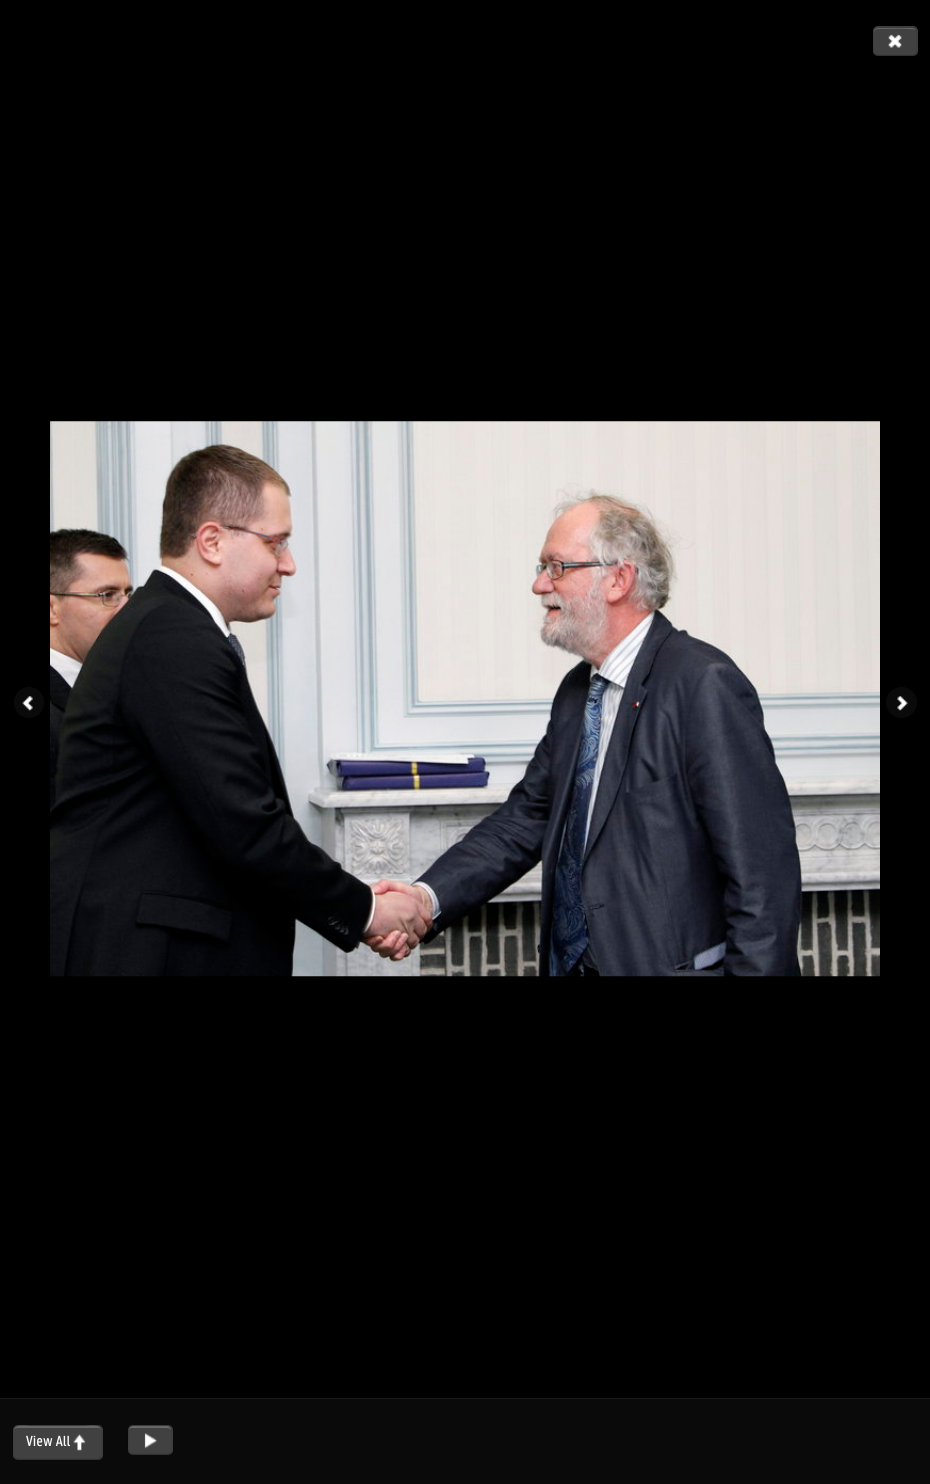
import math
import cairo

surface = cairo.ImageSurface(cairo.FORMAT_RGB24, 930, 1484)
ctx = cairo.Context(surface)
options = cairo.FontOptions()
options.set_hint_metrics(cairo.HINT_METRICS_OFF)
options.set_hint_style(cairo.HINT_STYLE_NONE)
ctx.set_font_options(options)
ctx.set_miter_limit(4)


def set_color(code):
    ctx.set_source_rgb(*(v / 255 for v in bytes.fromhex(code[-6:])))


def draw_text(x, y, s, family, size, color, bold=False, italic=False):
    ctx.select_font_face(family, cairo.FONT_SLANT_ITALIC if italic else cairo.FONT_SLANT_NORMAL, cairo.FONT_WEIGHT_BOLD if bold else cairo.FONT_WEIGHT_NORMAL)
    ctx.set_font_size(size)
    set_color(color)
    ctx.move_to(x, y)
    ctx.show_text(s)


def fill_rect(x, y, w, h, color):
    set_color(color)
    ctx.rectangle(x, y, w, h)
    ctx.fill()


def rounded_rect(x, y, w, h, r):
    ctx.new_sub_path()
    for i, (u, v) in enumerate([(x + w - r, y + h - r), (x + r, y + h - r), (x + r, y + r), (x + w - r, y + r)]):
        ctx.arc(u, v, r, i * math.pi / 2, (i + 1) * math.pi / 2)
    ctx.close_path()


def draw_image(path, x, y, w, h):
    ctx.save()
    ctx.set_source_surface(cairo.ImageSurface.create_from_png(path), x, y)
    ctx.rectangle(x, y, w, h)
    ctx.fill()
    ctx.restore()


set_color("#000000")
ctx.paint()
set_color("#414141")
rounded_rect(873, 26, 45, 30, 5)
ctx.fill()
set_color("#676767")
ctx.set_fill_rule(cairo.FILL_RULE_EVEN_ODD)
ctx.new_path()
ctx.move_to(878, 29)
ctx.curve_to(882, 29, 914, 28, 916, 30)
ctx.curve_to(915, 29, 914, 28, 912, 28)
ctx.line_to(878, 28)
ctx.curve_to(876, 28, 874, 30, 874, 32)
ctx.curve_to(875, 30, 876, 29, 878, 29)
ctx.close_path()
ctx.move_to(874, 52)
ctx.line_to(874, 49)
ctx.close_path()
ctx.fill()
ctx.new_path()
ctx.move_to(915.5, 54.5)
ctx.curve_to(915, 55, 913.5, 55.5, 912.5, 55.5)
ctx.line_to(877.5, 55.5)
ctx.curve_to(876.5, 55.5, 875, 55, 874.5, 54.5)
ctx.set_source_rgba(0, 0, 0, 0.25)
ctx.set_line_width(1.2)
ctx.stroke()
ctx.new_path()
ctx.move_to(874.5, 54.5)
ctx.curve_to(872, 52, 873, 44.5, 873, 41)
ctx.line_to(873, 30.5)
ctx.curve_to(874, 25.5, 880, 27, 883.5, 27)
ctx.line_to(906.5, 27)
ctx.curve_to(910, 27, 916, 25.5, 917, 30.5)
ctx.line_to(917, 41)
ctx.curve_to(917, 44.5, 918, 52, 915.5, 54.5)
ctx.set_source_rgba(0, 0, 0, 0.1)
ctx.stroke()
draw_image("assets/img1.png", 888, 34, 14, 14)
set_color("#0a0a0a")
rounded_rect(13.5, 686.5, 31, 32, 15.5)
ctx.fill_preserve()
set_color("#000000")
ctx.set_line_width(1)
ctx.stroke()
draw_image("assets/img2.png", 22, 696, 11, 15)
draw_image("assets/img3.png", 50, 421, 830, 556)
set_color("#0a0a0a")
ctx.arc(901.5, 702.5, 16, 0, 2 * math.pi)
ctx.fill_preserve()
set_color("#000000")
ctx.stroke()
draw_image("assets/img4.png", 897, 696, 11, 15)
fill_rect(0, 1399, 930, 85, "#0a0a0a")
fill_rect(0, 1398, 930, 1, "#181818")
set_color("#414141")
rounded_rect(13, 1425, 90, 35, 5)
ctx.fill()
set_color("#676767")
ctx.set_fill_rule(cairo.FILL_RULE_WINDING)
ctx.new_path()
ctx.move_to(18, 1428)
ctx.line_to(98, 1428)
ctx.curve_to(100, 1428, 101, 1429, 101, 1431)
ctx.curve_to(101, 1423, 89, 1426, 84, 1426)
ctx.line_to(31, 1426)
ctx.curve_to(26, 1426, 14, 1423, 14, 1431)
ctx.curve_to(14, 1429, 15, 1428, 18, 1428)
ctx.close_path()
ctx.fill()
ctx.new_path()
ctx.move_to(100.5, 1458)
ctx.line_to(98, 1459.5)
ctx.line_to(17, 1459.5)
ctx.line_to(14.5, 1458)
ctx.set_source_rgba(0, 0, 0, 0.25)
ctx.set_line_width(1.2)
ctx.stroke()
ctx.new_path()
ctx.move_to(14.5, 1458)
ctx.curve_to(12, 1455.5, 13, 1445.5, 13, 1442.5)
ctx.curve_to(13, 1423, 10.5, 1425.5, 31, 1425.5)
ctx.line_to(84, 1425.5)
ctx.curve_to(104.5, 1425.5, 102, 1423, 102, 1442.5)
ctx.curve_to(102, 1445.5, 103, 1455.5, 100.5, 1458)
ctx.set_source_rgba(0, 0, 0, 0.1)
ctx.stroke()
draw_text(26, 1446, "View All", "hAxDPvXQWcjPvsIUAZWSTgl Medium", 16, "#ffffff")
draw_image("assets/img5.png", 73, 1434, 13, 17)
set_color("#414141")
rounded_rect(128, 1425, 45, 30, 5)
ctx.fill()
set_color("#676767")
ctx.set_fill_rule(cairo.FILL_RULE_EVEN_ODD)
ctx.new_path()
ctx.move_to(132, 1428)
ctx.line_to(162, 1428)
ctx.curve_to(168, 1428, 170, 1428, 171, 1430)
ctx.curve_to(171, 1428, 169, 1426, 167, 1426)
ctx.line_to(133, 1426)
ctx.curve_to(131, 1426, 129, 1428, 129, 1430)
ctx.curve_to(129, 1429, 130, 1428, 132, 1428)
ctx.close_path()
ctx.move_to(129, 1451)
ctx.line_to(129, 1448)
ctx.close_path()
ctx.fill()
ctx.new_path()
ctx.move_to(170.5, 1453)
ctx.curve_to(170, 1454, 168.5, 1454.5, 167.5, 1454.5)
ctx.line_to(132.5, 1454.5)
ctx.curve_to(131.5, 1454.5, 130, 1454, 129.5, 1453)
ctx.set_source_rgba(0, 0, 0, 0.25)
ctx.stroke()
ctx.new_path()
ctx.move_to(129.5, 1453)
ctx.curve_to(127, 1450.5, 128, 1443, 128, 1440)
ctx.line_to(128, 1429)
ctx.curve_to(129, 1424.5, 135, 1425.5, 138.5, 1425.5)
ctx.line_to(161.5, 1425.5)
ctx.curve_to(165, 1425.5, 171, 1424.5, 172, 1429)
ctx.line_to(172, 1440)
ctx.curve_to(172, 1443, 173, 1450.5, 170.5, 1453)
ctx.set_source_rgba(0, 0, 0, 0.1)
ctx.stroke()
draw_image("assets/img6.png", 144, 1433, 13, 16)
surface.write_to_png("output.png")
